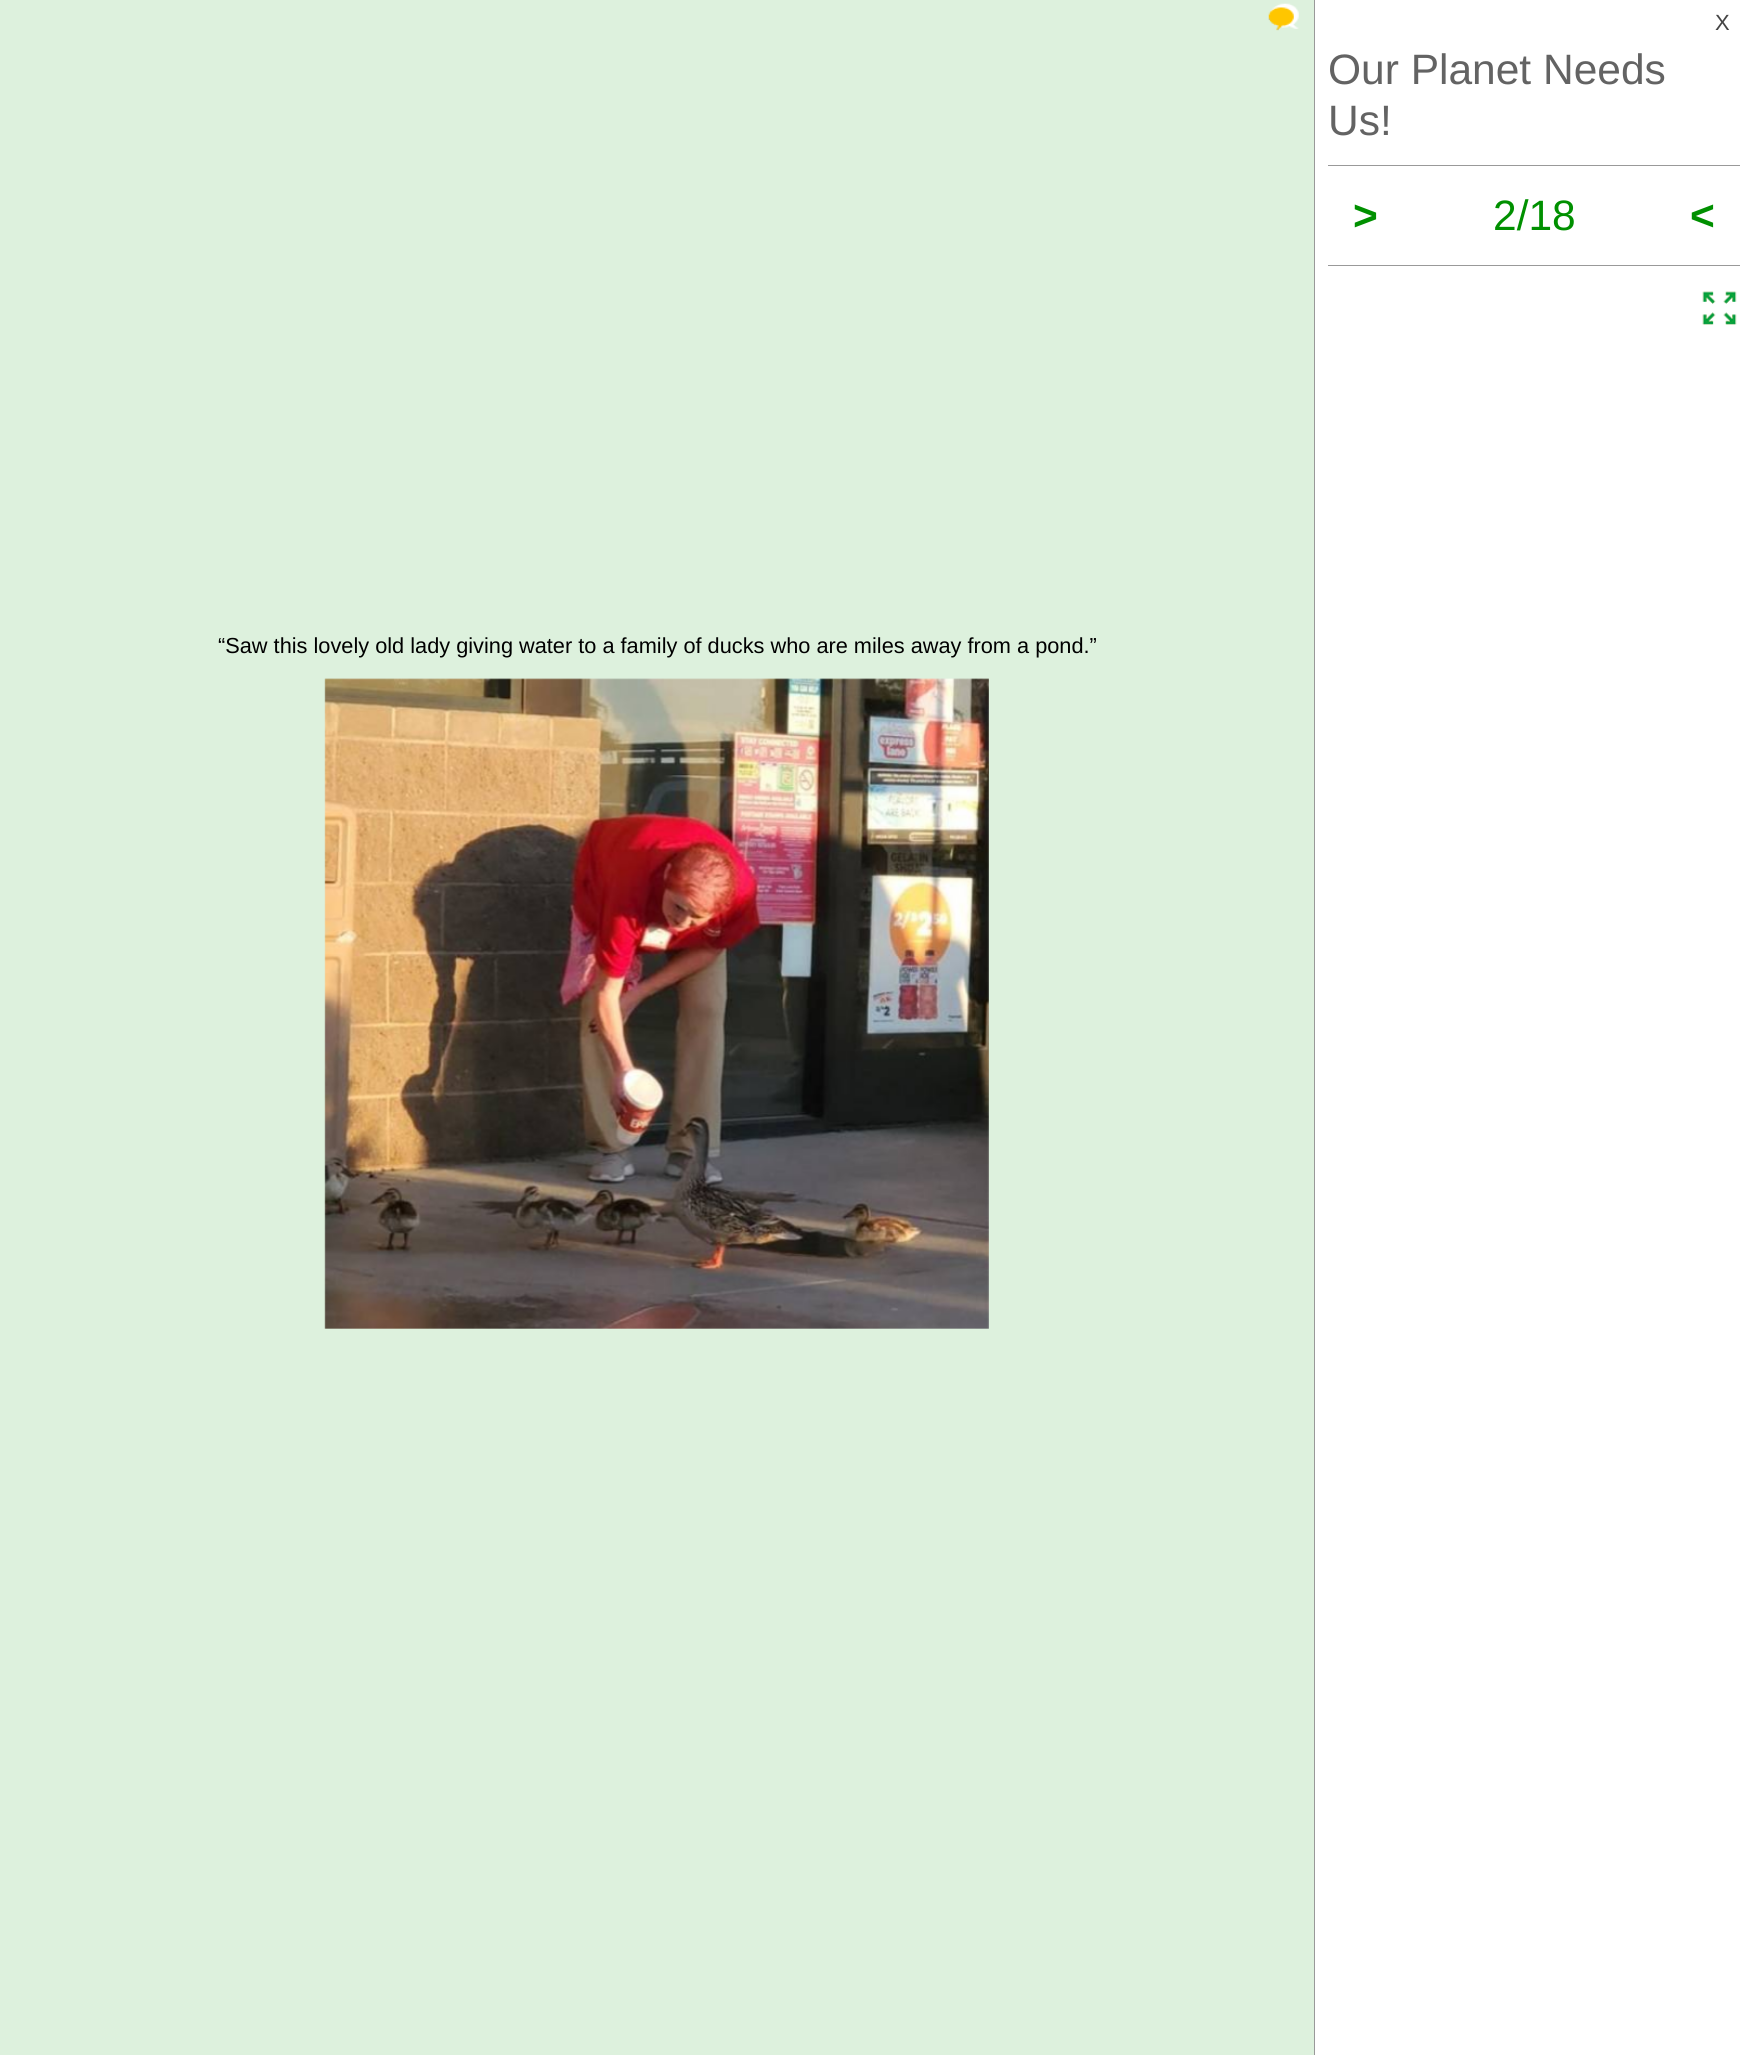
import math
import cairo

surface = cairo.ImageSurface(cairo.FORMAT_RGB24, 1752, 2055)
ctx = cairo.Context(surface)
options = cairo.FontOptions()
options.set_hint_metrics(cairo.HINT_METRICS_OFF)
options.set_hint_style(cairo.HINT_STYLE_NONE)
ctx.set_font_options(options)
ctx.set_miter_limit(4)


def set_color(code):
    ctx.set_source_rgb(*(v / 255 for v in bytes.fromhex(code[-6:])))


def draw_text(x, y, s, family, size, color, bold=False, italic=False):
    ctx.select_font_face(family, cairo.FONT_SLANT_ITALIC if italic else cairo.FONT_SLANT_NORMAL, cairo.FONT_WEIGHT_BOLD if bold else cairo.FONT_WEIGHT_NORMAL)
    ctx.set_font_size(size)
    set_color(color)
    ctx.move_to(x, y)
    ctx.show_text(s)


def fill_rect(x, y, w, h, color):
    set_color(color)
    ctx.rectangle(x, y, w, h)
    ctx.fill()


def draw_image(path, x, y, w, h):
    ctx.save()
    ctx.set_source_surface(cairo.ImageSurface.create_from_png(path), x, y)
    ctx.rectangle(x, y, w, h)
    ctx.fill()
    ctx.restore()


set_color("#ddf1dd")
ctx.paint()
fill_rect(1315, 0, 437, 2055, "#ffffff")
fill_rect(1314, 0, 1, 2055, "#999999")
draw_text(1715, 30, "X", "Liberation Sans", 22, "#444444")
draw_text(1328, 84, "Our Planet Needs", "Liberation Sans", 42.5, "#636363")
draw_text(1328, 135, "Us!", "Liberation Sans", 42.5, "#636363")
fill_rect(1328, 165, 412, 1, "#999999")
fill_rect(1328, 265, 412, 1, "#999999")
draw_text(1353, 230, ">", "Liberation Sans", 42.5, "#009000", bold=True)
draw_text(1493, 230, "2/18", "Liberation Sans", 42.5, "#009000")
draw_text(1690, 230, "<", "Liberation Sans", 42.5, "#009000", bold=True)
draw_image("assets/img1.png", 1702, 291, 35, 34)
draw_image("assets/img2.png", 1268, 3, 31, 28)
draw_text(218, 653, "“Saw this lovely old lady giving water to a family of ducks who are miles away from a pond.”", "Liberation Sans", 21.75, "#000000")
draw_image("assets/img3.png", 324, 678, 665, 651)
surface.write_to_png("output.png")
